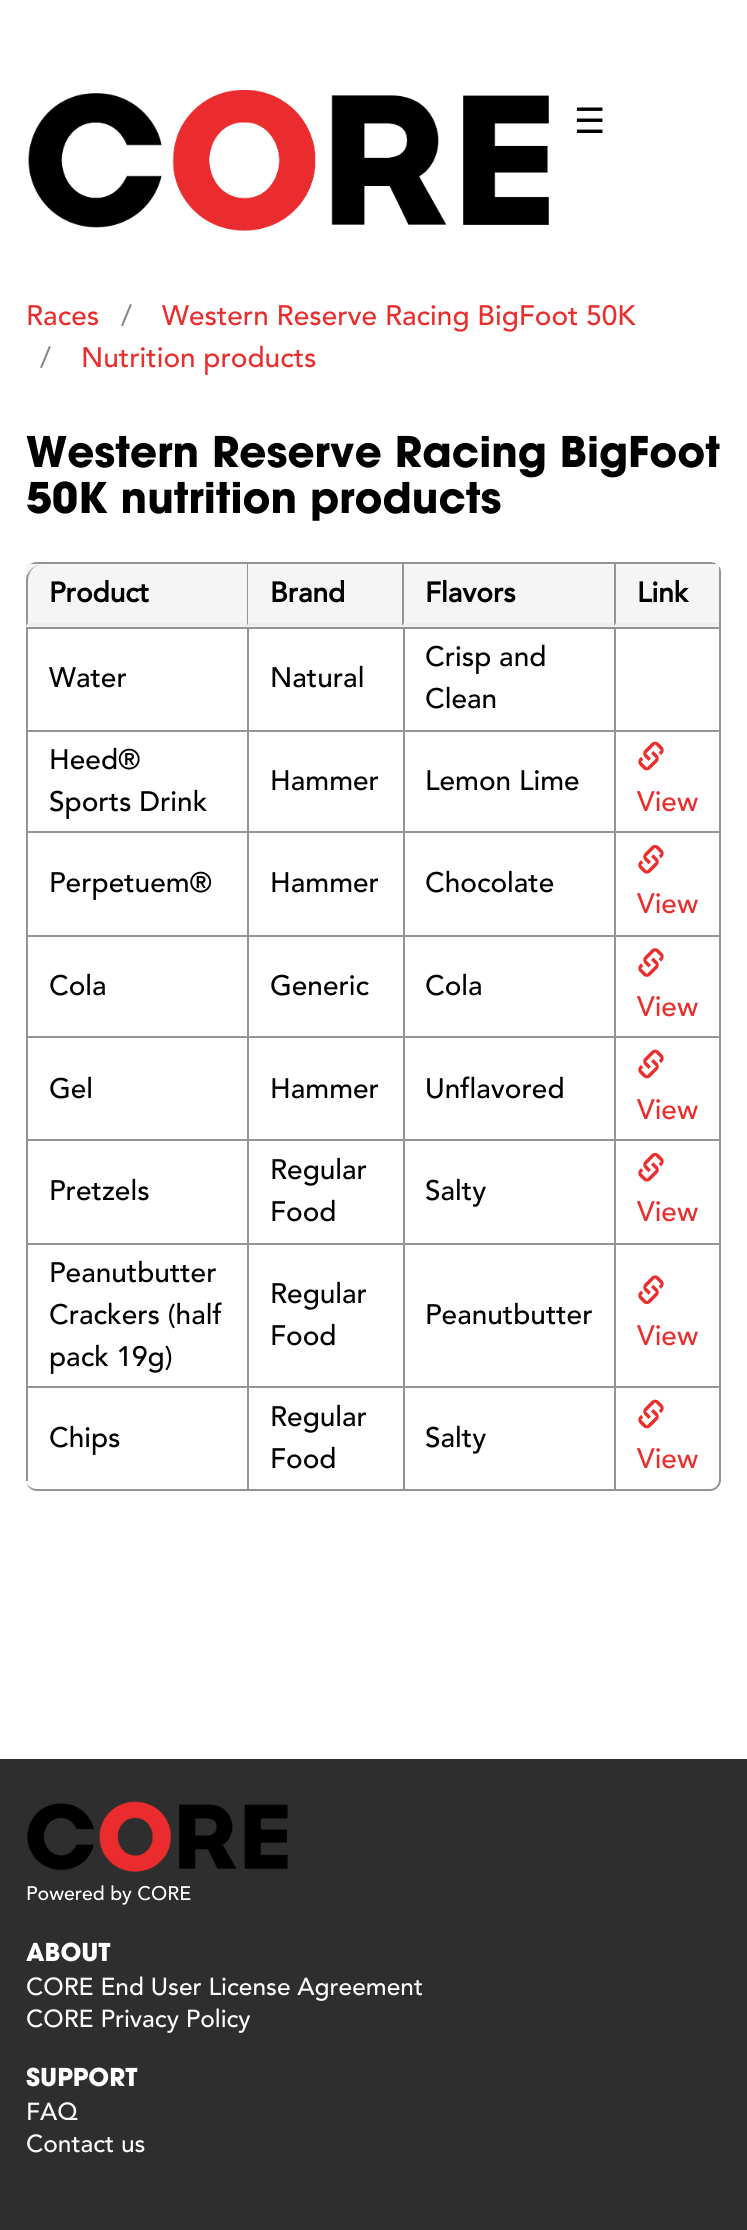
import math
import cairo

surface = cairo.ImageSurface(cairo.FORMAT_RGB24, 747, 2230)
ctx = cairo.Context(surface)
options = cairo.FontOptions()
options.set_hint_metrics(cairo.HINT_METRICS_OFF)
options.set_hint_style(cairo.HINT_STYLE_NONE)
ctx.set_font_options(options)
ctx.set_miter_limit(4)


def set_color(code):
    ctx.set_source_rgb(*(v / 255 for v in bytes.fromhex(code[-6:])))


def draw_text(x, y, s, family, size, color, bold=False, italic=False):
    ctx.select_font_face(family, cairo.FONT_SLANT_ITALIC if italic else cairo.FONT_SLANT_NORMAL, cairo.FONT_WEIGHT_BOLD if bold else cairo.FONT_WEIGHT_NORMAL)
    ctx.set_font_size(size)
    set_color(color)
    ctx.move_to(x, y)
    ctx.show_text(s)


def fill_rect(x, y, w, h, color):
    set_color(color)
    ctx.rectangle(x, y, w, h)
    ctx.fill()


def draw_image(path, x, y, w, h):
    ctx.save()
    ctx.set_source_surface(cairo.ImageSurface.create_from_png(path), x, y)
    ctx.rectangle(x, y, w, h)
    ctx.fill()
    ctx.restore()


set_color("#ffffff")
ctx.paint()
draw_image("assets/img1.png", 28, 90, 521, 142)
draw_text(574, 133, "☰", "DejaVu Sans", 35, "#000000")
draw_text(26, 325, "Races", "Avenir Medium", 28, "#e92f2d")
draw_text(121, 325, "/", "Avenir Medium", 28, "#818a91")
draw_text(162, 325, "Western Reserve Racing BigFoot 50K", "Avenir Medium", 28, "#e92f2d")
draw_text(40, 367, "/", "Avenir Medium", 28, "#818a91")
draw_text(81, 367, "Nutrition products", "Avenir Medium", 28, "#e92f2d")
draw_text(26, 467, "Western Reserve Racing BigFoot", "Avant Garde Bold", 42, "#000000", bold=True)
draw_text(26, 513, "50K nutrition products", "Avant Garde Bold", 42, "#000000", bold=True)
set_color("#929497")
ctx.set_fill_rule(cairo.FILL_RULE_EVEN_ODD)
ctx.new_path()
ctx.move_to(37, 562)
ctx.line_to(710, 562)
ctx.curve_to(716, 562, 721, 566, 721, 572)
ctx.line_to(721, 1480)
ctx.curve_to(721, 1486, 716, 1491, 710, 1491)
ctx.line_to(37, 1491)
ctx.curve_to(31, 1491, 26, 1486, 26, 1480)
ctx.line_to(26, 572)
ctx.curve_to(26, 566, 31, 562, 37, 562)
ctx.close_path()
ctx.move_to(37, 564)
ctx.line_to(710, 564)
ctx.curve_to(715, 564, 719, 567, 719, 572)
ctx.line_to(719, 1480)
ctx.curve_to(719, 1485, 715, 1489, 710, 1489)
ctx.line_to(37, 1489)
ctx.curve_to(31, 1489, 26, 1485, 26, 1480)
ctx.line_to(26, 572)
ctx.curve_to(26, 567, 31, 564, 37, 564)
ctx.close_path()
ctx.fill()
fill_rect(26, 564, 693, 63, "#f5f5f5")
set_color("#eceeef")
ctx.set_fill_rule(cairo.FILL_RULE_WINDING)
ctx.new_path()
ctx.move_to(247, 623)
ctx.line_to(247, 626)
ctx.line_to(26, 626)
ctx.line_to(28, 623)
ctx.close_path()
ctx.fill()
set_color("#929497")
ctx.new_path()
ctx.move_to(44, 564)
ctx.curve_to(35, 564, 28, 571, 28, 581)
ctx.line_to(28, 623)
ctx.line_to(26, 626)
ctx.line_to(26, 578)
ctx.curve_to(28, 570, 35, 564, 44, 564)
ctx.close_path()
ctx.fill()
draw_text(49, 602, "Product", "Avenir", 28, "#000000", bold=True)
set_color("#eceeef")
ctx.new_path()
ctx.move_to(402, 626)
ctx.line_to(247, 626)
ctx.line_to(248, 623)
ctx.line_to(402, 623)
ctx.close_path()
ctx.fill()
set_color("#929497")
ctx.new_path()
ctx.move_to(247, 626)
ctx.line_to(247, 564)
ctx.line_to(248, 564)
ctx.line_to(248, 623)
ctx.close_path()
ctx.fill()
draw_text(270, 602, "Brand", "Avenir", 28, "#000000", bold=True)
set_color("#eceeef")
ctx.new_path()
ctx.move_to(614, 626)
ctx.line_to(402, 626)
ctx.line_to(404, 623)
ctx.line_to(614, 623)
ctx.close_path()
ctx.fill()
set_color("#929497")
ctx.new_path()
ctx.move_to(402, 626)
ctx.line_to(402, 564)
ctx.line_to(404, 564)
ctx.line_to(404, 623)
ctx.close_path()
ctx.fill()
draw_text(425, 602, "Flavors", "Avenir", 28, "#000000", bold=True)
set_color("#eceeef")
ctx.new_path()
ctx.move_to(616, 623)
ctx.line_to(614, 626)
ctx.line_to(719, 626)
ctx.line_to(719, 623)
ctx.close_path()
ctx.fill()
set_color("#929497")
ctx.new_path()
ctx.move_to(616, 564)
ctx.line_to(616, 623)
ctx.line_to(614, 626)
ctx.line_to(614, 564)
ctx.close_path()
ctx.fill()
draw_text(637, 602, "Link", "Avenir", 28, "#000000", bold=True)
fill_rect(26, 627, 693, 2, "#929497")
fill_rect(26, 627, 2, 103, "#929497")
draw_text(49, 687, "Water", "Avenir Medium", 28, "#000000")
fill_rect(247, 627, 2, 103, "#929497")
draw_text(270, 687, "Natural", "Avenir Medium", 28, "#000000")
fill_rect(403, 627, 2, 103, "#929497")
draw_text(425, 666, "Crisp and", "Avenir Medium", 28, "#000000")
draw_text(425, 708, "Clean", "Avenir Medium", 28, "#000000")
fill_rect(614, 627, 2, 103, "#929497")
fill_rect(26, 730, 693, 2, "#929497")
fill_rect(26, 730, 2, 101, "#929497")
draw_text(49, 769, "Heed®", "Avenir Medium", 28, "#000000")
draw_text(49, 811, "Sports Drink", "Avenir Medium", 28, "#000000")
fill_rect(247, 730, 2, 101, "#929497")
draw_text(270, 790, "Hammer", "Avenir Medium", 28, "#000000")
fill_rect(403, 730, 2, 101, "#929497")
draw_text(425, 790, "Lemon Lime", "Avenir Medium", 28, "#000000")
fill_rect(614, 730, 2, 101, "#929497")
draw_image("assets/img2.png", 638, 741, 26, 30)
draw_text(637, 811, "View", "Avenir Medium", 28, "#e92f2d")
fill_rect(26, 831, 693, 2, "#929497")
fill_rect(26, 831, 2, 104, "#929497")
draw_text(49, 892, "Perpetuem®", "Avenir Medium", 28, "#000000")
fill_rect(247, 831, 2, 104, "#929497")
draw_text(270, 892, "Hammer", "Avenir Medium", 28, "#000000")
fill_rect(403, 831, 2, 104, "#929497")
draw_text(425, 892, "Chocolate", "Avenir Medium", 28, "#000000")
fill_rect(614, 831, 2, 104, "#929497")
draw_image("assets/img3.png", 638, 844, 26, 30)
draw_text(637, 913, "View", "Avenir Medium", 28, "#e92f2d")
fill_rect(26, 935, 693, 2, "#929497")
fill_rect(26, 935, 2, 101, "#929497")
draw_text(49, 995, "Cola", "Avenir Medium", 28, "#000000")
fill_rect(247, 935, 2, 101, "#929497")
draw_text(270, 995, "Generic", "Avenir Medium", 28, "#000000")
fill_rect(403, 935, 2, 101, "#929497")
draw_text(425, 995, "Cola", "Avenir Medium", 28, "#000000")
fill_rect(614, 935, 2, 101, "#929497")
draw_image("assets/img4.png", 638, 948, 26, 29)
draw_text(637, 1016, "View", "Avenir Medium", 28, "#e92f2d")
fill_rect(26, 1036, 693, 2, "#929497")
fill_rect(26, 1036, 2, 103, "#929497")
draw_text(49, 1098, "Gel", "Avenir Medium", 28, "#000000")
fill_rect(247, 1036, 2, 103, "#929497")
draw_text(270, 1098, "Hammer", "Avenir Medium", 28, "#000000")
fill_rect(403, 1036, 2, 103, "#929497")
draw_text(425, 1098, "Unflavored", "Avenir Medium", 28, "#000000")
fill_rect(614, 1036, 2, 103, "#929497")
draw_image("assets/img2.png", 638, 1049, 26, 30)
draw_text(637, 1119, "View", "Avenir Medium", 28, "#e92f2d")
fill_rect(26, 1139, 693, 2, "#929497")
fill_rect(26, 1139, 2, 104, "#929497")
draw_text(49, 1200, "Pretzels", "Avenir Medium", 28, "#000000")
fill_rect(247, 1139, 2, 104, "#929497")
draw_text(270, 1179, "Regular", "Avenir Medium", 28, "#000000")
draw_text(270, 1221, "Food", "Avenir Medium", 28, "#000000")
fill_rect(403, 1139, 2, 104, "#929497")
draw_text(425, 1200, "Salty", "Avenir Medium", 28, "#000000")
fill_rect(614, 1139, 2, 104, "#929497")
draw_image("assets/img3.png", 638, 1152, 26, 30)
draw_text(637, 1221, "View", "Avenir Medium", 28, "#e92f2d")
fill_rect(26, 1243, 693, 2, "#929497")
fill_rect(26, 1243, 2, 143, "#929497")
draw_text(49, 1282, "Peanutbutter", "Avenir Medium", 28, "#000000")
draw_text(49, 1324, "Crackers (half", "Avenir Medium", 28, "#000000")
draw_text(49, 1366, "pack 19g)", "Avenir Medium", 28, "#000000")
fill_rect(247, 1243, 2, 143, "#929497")
draw_text(270, 1303, "Regular", "Avenir Medium", 28, "#000000")
draw_text(270, 1345, "Food", "Avenir Medium", 28, "#000000")
fill_rect(403, 1243, 2, 143, "#929497")
draw_text(425, 1324, "Peanutbutter", "Avenir Medium", 28, "#000000")
fill_rect(614, 1243, 2, 143, "#929497")
draw_image("assets/img5.png", 638, 1275, 26, 30)
draw_text(637, 1345, "View", "Avenir Medium", 28, "#e92f2d")
fill_rect(26, 1386, 693, 2, "#929497")
fill_rect(26, 1386, 2, 95, "#929497")
draw_text(49, 1447, "Chips", "Avenir Medium", 28, "#000000")
fill_rect(247, 1386, 2, 103, "#929497")
draw_text(270, 1426, "Regular", "Avenir Medium", 28, "#000000")
draw_text(270, 1468, "Food", "Avenir Medium", 28, "#000000")
fill_rect(403, 1386, 2, 103, "#929497")
draw_text(425, 1447, "Salty", "Avenir Medium", 28, "#000000")
fill_rect(614, 1386, 2, 103, "#929497")
draw_image("assets/img2.png", 638, 1399, 26, 30)
draw_text(637, 1468, "View", "Avenir Medium", 28, "#e92f2d")
fill_rect(0, 1759, 747, 471, "#2f2e2e")
draw_image("assets/img6.png", 27, 1801, 261, 71)
draw_text(26, 1900, "Powered by CORE", "Avenir Medium", 19.5, "#ffffff")
draw_text(26, 1961, "ABOUT", "Avant Garde Bold", 24.5, "#ffffff", bold=True)
draw_text(26, 1995, "CORE End User License Agreement", "Avenir Medium", 24.5, "#ffffff")
draw_text(26, 2027, "CORE Privacy Policy", "Avenir Medium", 24.5, "#ffffff")
draw_text(26, 2086, "SUPPORT", "Avant Garde Bold", 24.5, "#ffffff", bold=True)
draw_text(26, 2120, "FAQ", "Avenir Medium", 24.5, "#ffffff")
draw_text(26, 2152, "Contact us", "Avenir Medium", 24.5, "#ffffff")
surface.write_to_png("output.png")
